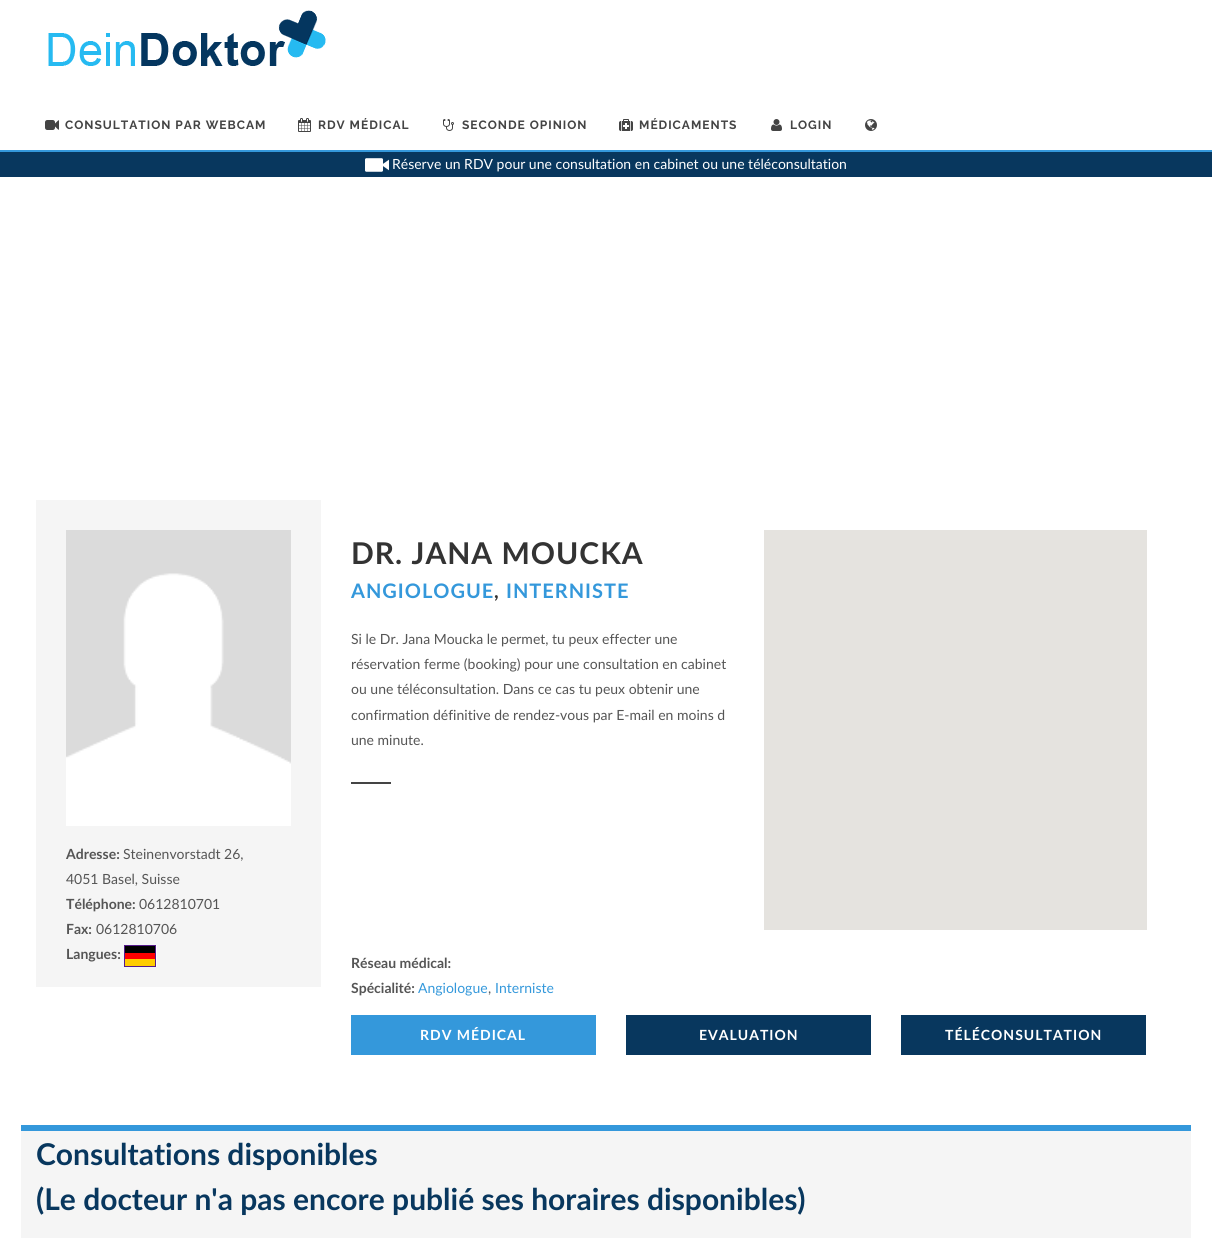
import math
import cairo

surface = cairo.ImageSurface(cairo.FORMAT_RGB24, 1212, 1238)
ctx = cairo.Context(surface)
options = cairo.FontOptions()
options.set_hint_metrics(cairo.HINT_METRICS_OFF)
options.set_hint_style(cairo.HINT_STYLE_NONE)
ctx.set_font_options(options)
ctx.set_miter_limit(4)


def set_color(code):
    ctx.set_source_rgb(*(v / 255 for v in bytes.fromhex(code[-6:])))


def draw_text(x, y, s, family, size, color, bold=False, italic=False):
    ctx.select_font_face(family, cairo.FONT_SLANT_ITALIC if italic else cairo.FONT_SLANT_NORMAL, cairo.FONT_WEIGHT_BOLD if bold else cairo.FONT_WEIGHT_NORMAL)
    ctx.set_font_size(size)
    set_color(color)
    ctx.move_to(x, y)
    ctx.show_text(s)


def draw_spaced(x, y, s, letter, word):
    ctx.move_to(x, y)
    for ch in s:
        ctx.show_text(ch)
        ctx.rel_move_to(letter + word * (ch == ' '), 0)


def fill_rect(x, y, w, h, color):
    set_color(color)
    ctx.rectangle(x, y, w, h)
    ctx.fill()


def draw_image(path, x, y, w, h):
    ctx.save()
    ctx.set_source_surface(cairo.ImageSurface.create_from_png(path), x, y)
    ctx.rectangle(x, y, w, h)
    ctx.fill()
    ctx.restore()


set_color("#ffffff")
ctx.paint()
draw_image("assets/img1.png", 48, 10, 278, 56)
draw_image("assets/img2.png", 45, 120, 14, 10)
ctx.select_font_face("Raleway", cairo.FONT_SLANT_NORMAL, cairo.FONT_WEIGHT_BOLD)
ctx.set_font_size(12)
set_color("#444444")
draw_spaced(65, 129, "CONSULTATION PAR WEBCAM", 1, 0)
draw_image("assets/img3.png", 298, 118, 13, 14)
draw_spaced(318, 129, "RDV MÉDICAL", 1, 0)
draw_image("assets/img4.png", 443, 119, 11, 12)
draw_spaced(462, 129, "SECONDE OPINION", 1, 0)
draw_image("assets/img5.png", 619, 119, 14, 12)
draw_spaced(639, 129, "MÉDICAMENTS", 1, 0)
draw_image("assets/img6.png", 771, 119, 11, 12)
draw_spaced(790, 129, "LOGIN", 1, 0)
draw_image("assets/img7.png", 865, 119, 12, 12)
fill_rect(0, 152, 1212, 25, "#08375e")
fill_rect(0, 150, 1212, 2, "#3498db")
draw_image("assets/img8.png", 365, 158, 24, 14)
draw_text(392, 169, "Réserve un RDV pour une consultation en cabinet ou une téléconsultation", "Lato", 14, "#ffffff")
fill_rect(36, 500, 285, 487, "#f5f5f5")
draw_image("assets/img9.png", 66, 530, 225, 296)
draw_text(66, 859, "Adresse:", "Lato", 14, "#555555", bold=True)
draw_text(123, 859, "Steinenvorstadt 26,", "Lato", 14, "#555555")
draw_text(66, 884, "4051 Basel, Suisse", "Lato", 14, "#555555")
draw_text(66, 909, "Téléphone:", "Lato", 14, "#555555", bold=True)
draw_text(139, 909, "0612810701", "Lato", 14, "#555555")
draw_text(66, 934, "Fax:", "Lato", 14, "#555555", bold=True)
draw_text(96, 934, "0612810706", "Lato", 14, "#555555")
draw_text(66, 959, "Langues:", "Lato", 14, "#555555", bold=True)
draw_image("assets/img10.png", 124, 945, 33, 22)
ctx.set_font_size(30)
set_color("#333333")
draw_spaced(351, 564, "DR. JANA MOUCKA", 1, 0)
ctx.set_font_size(20)
set_color("#3498db")
draw_spaced(351, 598, "ANGIOLOGUE", 1, 0)
set_color("#333333")
draw_spaced(494, 598, ",", 1, 0)
set_color("#3498db")
draw_spaced(506, 598, "INTERNISTE", 1, 0)
draw_text(351, 644, "Si le Dr. Jana Moucka le permet, tu peux effecter une", "Lato", 14, "#555555")
draw_text(351, 669, "réservation ferme (booking) pour une consultation en cabinet", "Lato", 14, "#555555")
draw_text(351, 694, "ou une téléconsultation. Dans ce cas tu peux obtenir une", "Lato", 14, "#555555")
draw_text(351, 720, "confirmation définitive de rendez-vous par E-mail en moins d", "Lato", 14, "#555555")
draw_text(351, 745, "une minute.", "Lato", 14, "#555555")
fill_rect(351, 782, 40, 2, "#444444")
fill_rect(764, 530, 383, 400, "#e5e3df")
draw_text(351, 968, "Réseau médical:", "Lato", 14, "#555555", bold=True)
draw_text(351, 993, "Spécialité:", "Lato", 14, "#555555", bold=True)
draw_text(418, 993, "Angiologue", "Lato", 14, "#3498db")
draw_text(488, 993, ",", "Lato", 14, "#555555")
draw_text(495, 993, "Interniste", "Lato", 14, "#3498db")
fill_rect(351, 1015, 245, 40, "#3498db")
ctx.select_font_face("Lato", cairo.FONT_SLANT_NORMAL, cairo.FONT_WEIGHT_BOLD)
set_color("#ffffff")
draw_spaced(420, 1040, "RDV MÉDICAL", 1, 0)
fill_rect(626, 1015, 245, 40, "#08375e")
set_color("#ffffff")
draw_spaced(699, 1040, "EVALUATION", 1, 0)
fill_rect(901, 1015, 245, 40, "#08375e")
set_color("#ffffff")
draw_spaced(945, 1040, "TÉLÉCONSULTATION", 1, 0)
fill_rect(21, 1131, 1170, 107, "#f5f5f5")
fill_rect(21, 1125, 1170, 6, "#3498db")
draw_text(36, 1165, "Consultations disponibles", "Lato", 30, "#08375e", bold=True)
draw_text(36, 1210, "(Le docteur n'a pas encore publié ses horaires disponibles)", "Lato", 30, "#08375e", bold=True)
surface.write_to_png("output.png")
